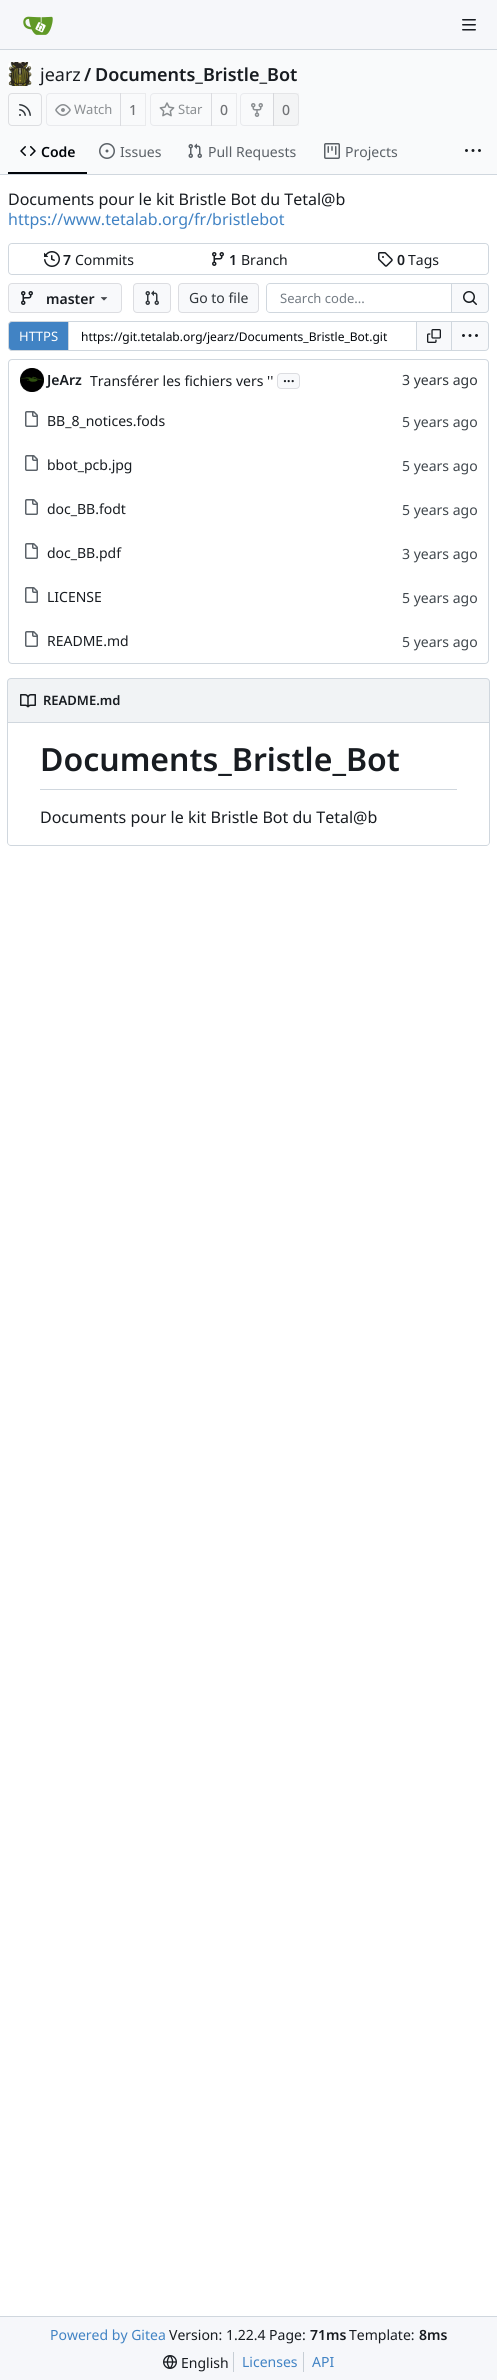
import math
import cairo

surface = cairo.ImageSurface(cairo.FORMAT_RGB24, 497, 2380)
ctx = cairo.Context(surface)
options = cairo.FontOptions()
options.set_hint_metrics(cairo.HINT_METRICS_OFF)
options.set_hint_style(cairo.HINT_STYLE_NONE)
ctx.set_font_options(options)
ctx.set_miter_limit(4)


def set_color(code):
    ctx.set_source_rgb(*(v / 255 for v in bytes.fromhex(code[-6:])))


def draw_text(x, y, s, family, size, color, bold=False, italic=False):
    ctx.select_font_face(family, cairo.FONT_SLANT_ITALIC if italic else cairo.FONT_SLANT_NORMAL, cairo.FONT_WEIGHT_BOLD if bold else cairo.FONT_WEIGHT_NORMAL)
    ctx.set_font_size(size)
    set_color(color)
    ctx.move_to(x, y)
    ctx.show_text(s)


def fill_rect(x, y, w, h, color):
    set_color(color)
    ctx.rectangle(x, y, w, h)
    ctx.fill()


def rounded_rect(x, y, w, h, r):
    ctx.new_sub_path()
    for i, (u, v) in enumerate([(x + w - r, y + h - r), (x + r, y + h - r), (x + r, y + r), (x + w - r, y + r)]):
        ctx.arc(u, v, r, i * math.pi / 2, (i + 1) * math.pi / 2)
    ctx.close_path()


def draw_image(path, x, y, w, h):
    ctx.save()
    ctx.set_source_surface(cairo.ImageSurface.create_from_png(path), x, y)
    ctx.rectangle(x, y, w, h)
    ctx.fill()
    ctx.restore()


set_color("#ffffff")
ctx.paint()
fill_rect(0, 0, 497, 49, "#f6f7fa")
fill_rect(0, 49, 497, 1, "#d0d7de")
draw_image("assets/img1.png", 23, 16, 30, 19)
draw_image("assets/img2.png", 462, 19, 14, 12)
fill_rect(0, 50, 497, 124, "#f9fafb")
draw_image("assets/img3.png", 8, 62, 24, 24)
draw_text(40, 81, "jearz", "Noto Sans", 18, "#181c21")
draw_text(84, 81, "/", "Noto Sans SemiBold", 18, "#181c21")
draw_text(95, 81, "Documents_Bristle_Bot", "Noto Sans SemiBold", 18, "#181c21")
rounded_rect(8.5, 93.5, 33, 32, 3.5)
set_color("#dddee1")
ctx.set_line_width(1)
ctx.stroke()
draw_image("assets/img4.png", 19, 104, 12, 12)
ctx.new_path()
ctx.move_to(50, 93.5)
ctx.line_to(120.5, 93.5)
ctx.line_to(120.5, 125.5)
ctx.line_to(50, 125.5)
ctx.curve_to(48, 125.5, 46.5, 124, 46.5, 122)
ctx.line_to(46.5, 97)
ctx.curve_to(46.5, 95, 48, 93.5, 50, 93.5)
ctx.close_path()
set_color("#e9eaed")
ctx.stroke()
draw_image("assets/img5.png", 55, 104, 16, 12)
draw_text(74, 114, "Watch", "Noto Sans", 13, "#8a8e91")
ctx.rectangle(120.5, 93.5, 25, 32)
ctx.set_source_rgba(0, 0, 0.09, 0.06)
ctx.stroke()
draw_text(129, 115, "1", "Noto Sans Medium", 14, "#717376")
ctx.new_path()
ctx.move_to(154, 93.5)
ctx.line_to(211.5, 93.5)
ctx.line_to(211.5, 125.5)
ctx.line_to(154, 125.5)
ctx.curve_to(152, 125.5, 150.5, 124, 150.5, 122)
ctx.line_to(150.5, 97)
ctx.curve_to(150.5, 95, 152, 93.5, 154, 93.5)
ctx.close_path()
set_color("#e9eaed")
ctx.stroke()
draw_image("assets/img6.png", 159, 102, 16, 15)
draw_text(178, 114, "Star", "Noto Sans", 13, "#8a8e91")
ctx.rectangle(211.5, 93.5, 25, 32)
ctx.set_source_rgba(0, 0, 0.09, 0.06)
ctx.stroke()
draw_text(220, 115, "0", "Noto Sans Medium", 14, "#717376")
ctx.new_path()
ctx.move_to(244, 93.5)
ctx.line_to(273.5, 93.5)
ctx.line_to(273.5, 125.5)
ctx.line_to(244, 125.5)
ctx.curve_to(242, 125.5, 240.5, 124, 240.5, 122)
ctx.line_to(240.5, 97)
ctx.curve_to(240.5, 95, 242, 93.5, 244, 93.5)
ctx.close_path()
set_color("#e9eaed")
ctx.stroke()
draw_image("assets/img7.png", 251, 103, 12, 14)
ctx.set_source_rgba(0.439, 0.443, 0.443, 0.04)
ctx.rectangle(273, 93, 26, 33)
ctx.fill()
ctx.new_path()
ctx.move_to(273.5, 93.5)
ctx.line_to(295, 93.5)
ctx.curve_to(297, 93.5, 298.5, 95, 298.5, 97)
ctx.line_to(298.5, 122)
ctx.curve_to(298.5, 124, 297, 125.5, 295, 125.5)
ctx.line_to(273.5, 125.5)
ctx.close_path()
ctx.set_source_rgba(0.439, 0.443, 0.494, 0.11)
ctx.stroke()
draw_text(282, 115, "0", "Noto Sans Medium", 14, "#717376")
fill_rect(8, 172, 79, 2, "#01050a")
draw_image("assets/img8.png", 20, 146, 16, 10)
draw_text(41, 157, "Code", "Noto Sans SemiBold", 14, "#01050a")
draw_image("assets/img9.png", 99, 143, 16, 16)
draw_text(120, 157, "Issues", "Noto Sans", 14, "#5b6167")
draw_image("assets/img10.png", 188, 143, 14, 15)
draw_text(208, 157, "Pull Requests", "Noto Sans", 14, "#5b6167")
draw_image("assets/img11.png", 324, 143, 16, 16)
draw_text(345, 157, "Projects", "Noto Sans", 14, "#5b6167")
draw_image("assets/img12.png", 465, 149, 16, 3)
fill_rect(0, 174, 497, 1, "#d0d7de")
draw_text(8, 205, "Documents pour le kit Bristle Bot du Tetal@b", "Noto Sans", 16, "#181c21")
draw_text(8, 225, "https://www.tetalab.org/fr/bristlebot", "Noto Sans", 16, "#4183c4")
rounded_rect(8.5, 243.5, 480, 31, 3.5)
set_color("#d0d7de")
ctx.stroke()
set_color("#ffffff")
rounded_rect(9, 244, 479, 30, 4)
ctx.fill()
draw_image("assets/img13.png", 44, 251, 16, 16)
draw_text(63, 265, "7", "Noto Sans SemiBold", 14, "#181c21")
draw_text(75, 265, "Commits", "Noto Sans", 14, "#181c21")
draw_image("assets/img14.png", 212, 252, 12, 14)
draw_text(229, 265, "1", "Noto Sans SemiBold", 14, "#181c21")
draw_text(241, 265, "Branch", "Noto Sans", 14, "#181c21")
draw_image("assets/img15.png", 378, 252, 15, 15)
draw_text(397, 265, "0", "Noto Sans SemiBold", 14, "#181c21")
draw_text(408, 265, "Tags", "Noto Sans", 14, "#181c21")
set_color("#f8f9fb")
rounded_rect(8.5, 283.5, 113, 29, 3.5)
ctx.fill_preserve()
set_color("#dcdde1")
ctx.stroke()
draw_image("assets/img16.png", 21, 291, 12, 14)
draw_text(46, 304, "master", "Noto Sans SemiBold", 14, "#181c21")
draw_image("assets/img17.png", 100, 297, 8, 4)
set_color("#f8f9fb")
rounded_rect(133.5, 283.5, 37, 29, 3.5)
ctx.fill_preserve()
set_color("#dcdde1")
ctx.stroke()
draw_image("assets/img18.png", 145, 290, 14, 15)
set_color("#f8f9fb")
rounded_rect(178.5, 283.5, 80, 29, 3.5)
ctx.fill_preserve()
set_color("#dcdde1")
ctx.stroke()
draw_text(189, 303, "Go to file", "Noto Sans", 14, "#30363b")
set_color("#d0d7de")
ctx.set_fill_rule(cairo.FILL_RULE_EVEN_ODD)
ctx.new_path()
ctx.move_to(270, 283)
ctx.line_to(451, 283)
ctx.line_to(451, 313)
ctx.line_to(270, 313)
ctx.curve_to(268, 313, 266, 311, 266, 309)
ctx.line_to(266, 287)
ctx.curve_to(266, 285, 268, 283, 270, 283)
ctx.close_path()
ctx.move_to(270, 284)
ctx.line_to(451, 284)
ctx.line_to(451, 312)
ctx.line_to(270, 312)
ctx.curve_to(268, 312, 267, 311, 267, 309)
ctx.line_to(267, 287)
ctx.curve_to(267, 285, 268, 284, 270, 284)
ctx.close_path()
ctx.fill()
draw_text(280, 303, "Search code...", "Noto Sans", 13, "#747c84")
set_color("#f8f9fb")
ctx.new_path()
ctx.move_to(451.5, 283.5)
ctx.line_to(485, 283.5)
ctx.curve_to(487, 283.5, 488.5, 285, 488.5, 287)
ctx.line_to(488.5, 309)
ctx.curve_to(488.5, 311, 487, 312.5, 485, 312.5)
ctx.line_to(451.5, 312.5)
ctx.close_path()
ctx.fill_preserve()
set_color("#d0d7de")
ctx.stroke()
draw_image("assets/img19.png", 463, 291, 14, 14)
set_color("#4183c4")
ctx.new_path()
ctx.move_to(12, 321.5)
ctx.line_to(68.5, 321.5)
ctx.line_to(68.5, 350.5)
ctx.line_to(12, 350.5)
ctx.curve_to(10, 350.5, 8.5, 349, 8.5, 347)
ctx.line_to(8.5, 325)
ctx.curve_to(8.5, 323, 10, 321.5, 12, 321.5)
ctx.close_path()
ctx.fill_preserve()
set_color("#d0d7de")
ctx.stroke()
draw_text(19, 341, "HTTPS", "Noto Sans", 13, "#ffffff")
fill_rect(68, 321, 348, 1, "#d0d7de")
fill_rect(68, 350, 348, 1, "#d0d7de")
draw_text(81, 341, "https://git.tetalab.org/jearz/Documents_Bristle_Bot.git", "Noto Sans", 12, "#01050a")
set_color("#f8f9fb")
ctx.rectangle(416.5, 321.5, 35, 29)
ctx.fill_preserve()
set_color("#d0d7de")
ctx.stroke()
draw_image("assets/img20.png", 427, 329, 14, 14)
set_color("#f8f9fb")
ctx.new_path()
ctx.move_to(451.5, 321.5)
ctx.line_to(485, 321.5)
ctx.curve_to(487, 321.5, 488.5, 323, 488.5, 325)
ctx.line_to(488.5, 347)
ctx.curve_to(488.5, 349, 487, 350.5, 485, 350.5)
ctx.line_to(451.5, 350.5)
ctx.close_path()
ctx.fill_preserve()
set_color("#d0d7de")
ctx.stroke()
draw_image("assets/img21.png", 462, 334, 16, 3)
rounded_rect(8.5, 359.5, 480, 304, 3.5)
ctx.stroke()
draw_image("assets/img22.png", 20, 368, 24, 24)
draw_text(47, 385, "JeArz", "Noto Sans SemiBold", 14, "#181c21")
draw_text(90, 386, "Transférer les fichiers vers ''", "Noto Sans", 14, "#181c21")
set_color("#f8f9fb")
rounded_rect(277.5, 373.5, 22, 15, 3.5)
ctx.fill_preserve()
set_color("#dcdde1")
ctx.stroke()
draw_text(283, 382, "...", "Noto Sans SemiBold", 14, "#181c21")
draw_text(402, 385, "3 years ago", "Noto Sans", 14, "#30363b")
draw_image("assets/img23.png", 25, 411, 13, 16)
draw_text(47, 426, "BB_8_notices.fods", "Noto Sans", 14, "#181c21")
draw_text(402, 427, "5 years ago", "Noto Sans", 14, "#40474d")
draw_image("assets/img23.png", 25, 455, 13, 16)
draw_text(47, 470, "bbot_pcb.jpg", "Noto Sans", 14, "#181c21")
draw_text(402, 471, "5 years ago", "Noto Sans", 14, "#40474d")
draw_image("assets/img23.png", 25, 499, 13, 16)
draw_text(47, 514, "doc_BB.fodt", "Noto Sans", 14, "#181c21")
draw_text(402, 515, "5 years ago", "Noto Sans", 14, "#40474d")
draw_image("assets/img23.png", 25, 543, 13, 16)
draw_text(47, 558, "doc_BB.pdf", "Noto Sans", 14, "#181c21")
draw_text(402, 559, "3 years ago", "Noto Sans", 14, "#40474d")
draw_image("assets/img23.png", 25, 587, 13, 16)
draw_text(47, 602, "LICENSE", "Noto Sans", 14, "#181c21")
draw_text(402, 603, "5 years ago", "Noto Sans", 14, "#40474d")
draw_image("assets/img23.png", 25, 631, 13, 16)
draw_text(47, 646, "README.md", "Noto Sans", 14, "#181c21")
draw_text(402, 647, "5 years ago", "Noto Sans", 14, "#40474d")
set_color("#f1f3f5")
ctx.new_path()
ctx.move_to(11, 678.5)
ctx.line_to(486, 678.5)
ctx.curve_to(488, 678.5, 489.5, 680, 489.5, 682)
ctx.line_to(489.5, 722.5)
ctx.line_to(7.5, 722.5)
ctx.line_to(7.5, 682)
ctx.curve_to(7.5, 680, 9, 678.5, 11, 678.5)
ctx.close_path()
ctx.fill_preserve()
set_color("#d0d7de")
ctx.stroke()
draw_image("assets/img24.png", 20, 694, 16, 14)
draw_text(43, 705, "README.md", "Noto Sans SemiBold", 13, "#181c21")
set_color("#d0d7de")
ctx.new_path()
ctx.move_to(7, 723)
ctx.line_to(490, 723)
ctx.line_to(490, 842)
ctx.curve_to(490, 844, 488, 846, 486, 846)
ctx.line_to(11, 846)
ctx.curve_to(9, 846, 7, 844, 7, 842)
ctx.close_path()
ctx.move_to(8, 723)
ctx.line_to(489, 723)
ctx.line_to(489, 842)
ctx.curve_to(489, 844, 488, 845, 486, 845)
ctx.line_to(11, 845)
ctx.curve_to(9, 845, 8, 844, 8, 842)
ctx.close_path()
ctx.fill()
fill_rect(40, 789, 417, 1, "#d0d7de")
draw_text(40, 771, "Documents_Bristle_Bot", "Noto Sans SemiBold", 32, "#181c21")
draw_text(40, 823, "Documents pour le kit Bristle Bot du Tetal@b", "Noto Sans", 16, "#181c21")
fill_rect(0, 2317, 497, 63, "#f6f7fa")
fill_rect(0, 2316, 497, 1, "#d0d7de")
draw_text(50, 2340, "Powered by Gitea", "Noto Sans", 14, "#4183c4")
draw_text(169, 2340, "Version: 1.22.4 Page:", "Noto Sans", 14, "#181c21")
draw_text(310, 2340, "71ms", "Noto Sans SemiBold", 14, "#181c21")
draw_text(349, 2340, "Template:", "Noto Sans", 14, "#181c21")
draw_text(419, 2340, "8ms", "Noto Sans SemiBold", 14, "#181c21")
draw_image("assets/img25.png", 163, 2355, 14, 14)
draw_text(181, 2368, "English", "Noto Sans", 14, "#181c21")
fill_rect(233, 2352, 1, 20, "#c7ced5")
draw_text(242, 2367, "Licenses", "Noto Sans", 14, "#4183c4")
fill_rect(303, 2352, 1, 20, "#c7ced5")
draw_text(312, 2367, "API", "Noto Sans", 14, "#4183c4")
surface.write_to_png("output.png")
